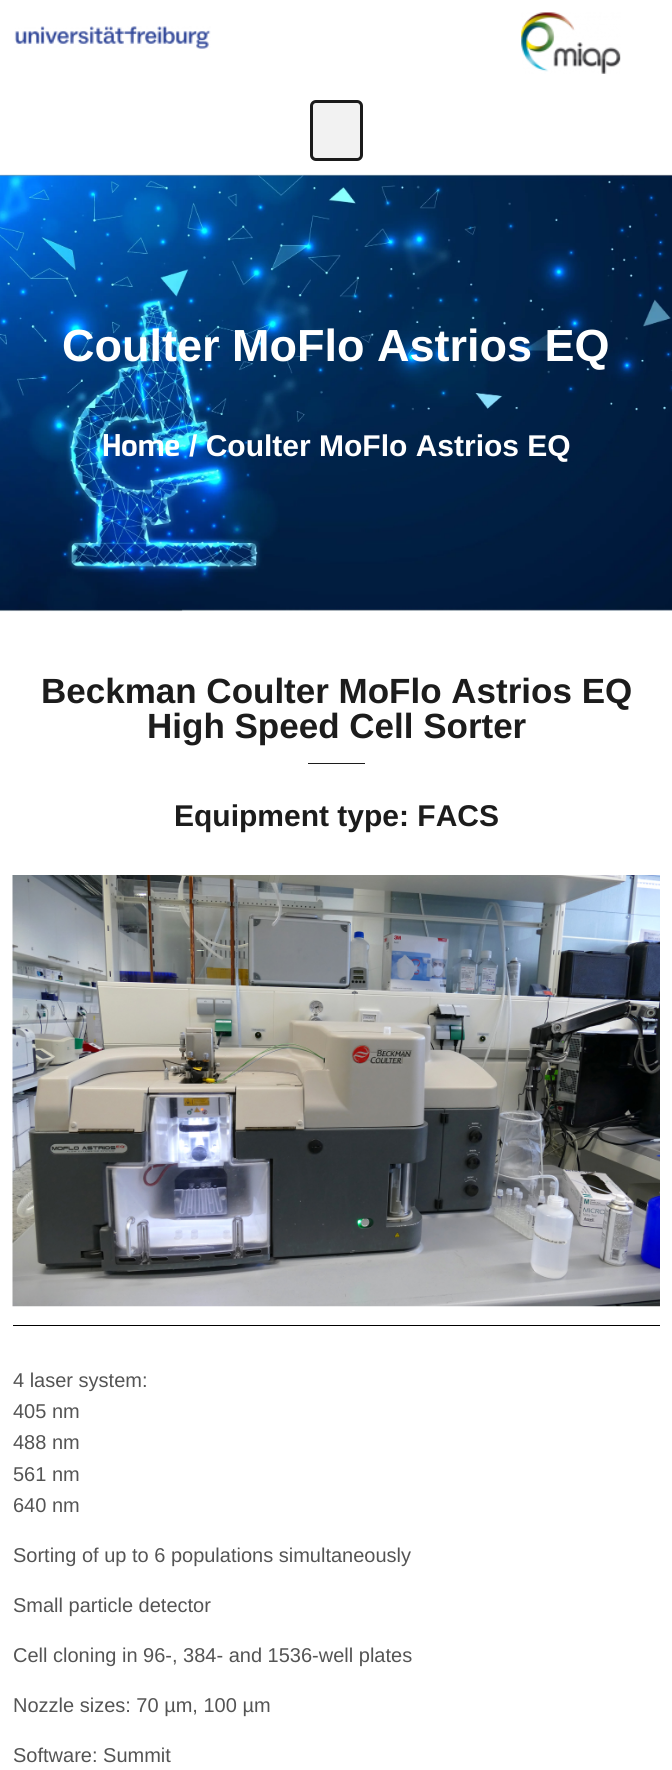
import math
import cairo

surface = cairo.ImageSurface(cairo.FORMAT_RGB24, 672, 1770)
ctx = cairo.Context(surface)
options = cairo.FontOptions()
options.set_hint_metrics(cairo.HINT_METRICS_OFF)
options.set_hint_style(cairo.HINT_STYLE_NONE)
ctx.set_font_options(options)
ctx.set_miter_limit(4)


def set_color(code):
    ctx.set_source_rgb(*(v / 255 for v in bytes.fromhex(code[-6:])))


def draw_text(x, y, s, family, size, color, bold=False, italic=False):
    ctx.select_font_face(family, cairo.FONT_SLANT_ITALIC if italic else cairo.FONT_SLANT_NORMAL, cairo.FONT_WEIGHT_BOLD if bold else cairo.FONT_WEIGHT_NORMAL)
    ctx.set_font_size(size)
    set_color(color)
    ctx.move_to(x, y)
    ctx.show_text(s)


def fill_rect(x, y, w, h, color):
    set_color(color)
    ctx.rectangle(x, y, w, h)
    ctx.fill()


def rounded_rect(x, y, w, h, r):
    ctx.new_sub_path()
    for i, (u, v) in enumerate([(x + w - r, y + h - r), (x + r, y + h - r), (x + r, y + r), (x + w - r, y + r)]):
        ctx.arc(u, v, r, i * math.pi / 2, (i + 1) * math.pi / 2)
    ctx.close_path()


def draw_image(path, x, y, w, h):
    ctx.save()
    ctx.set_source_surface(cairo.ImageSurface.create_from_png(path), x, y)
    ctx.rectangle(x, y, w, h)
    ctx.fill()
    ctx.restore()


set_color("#ffffff")
ctx.paint()
draw_image("assets/img1.png", 14, 26, 197, 23)
draw_image("assets/img2.png", 521, 12, 100, 62)
set_color("#f2f2f2")
rounded_rect(310, 100, 53, 61, 6)
ctx.fill()
rounded_rect(311.5, 101.5, 50, 58, 4.5)
ctx.set_source_rgba(0, 0, 0, 0.89)
ctx.set_line_width(3)
ctx.stroke()
draw_image("assets/img3.png", 0, 174, 672, 438)
draw_text(62, 361, "Coulter MoFlo Astrios EQ", "Liberation Sans", 45, "#ffffff", bold=True)
draw_text(102, 456, "Home", "Mina", 30, "#ffffff", bold=True)
draw_text(189, 456, "/ Coulter MoFlo Astrios EQ", "Liberation Sans", 30, "#ffffff", bold=True)
draw_text(41, 703, "Beckman Coulter MoFlo Astrios EQ", "Liberation Sans", 35, "#1c1c1c", bold=True)
draw_text(147, 738, "High Speed Cell Sorter", "Liberation Sans", 35, "#1c1c1c", bold=True)
fill_rect(308, 763, 57, 1, "#1c1c1c")
draw_text(174, 826, "Equipment type: FACS", "Liberation Sans", 30, "#1c1c1c", bold=True)
draw_image("assets/img4.png", 12, 875, 648, 432)
fill_rect(13, 1325, 647, 1, "#000000")
draw_text(13, 1387, "4 laser system:", "Liberation Sans", 20, "#545454")
draw_text(13, 1418, "405 nm", "Liberation Sans", 20, "#545454")
draw_text(13, 1449, "488 nm", "Liberation Sans", 20, "#545454")
draw_text(13, 1481, "561 nm", "Liberation Sans", 20, "#545454")
draw_text(13, 1512, "640 nm", "Liberation Sans", 20, "#545454")
draw_text(13, 1562, "Sorting of up to 6 populations simultaneously", "Liberation Sans", 20, "#545454")
draw_text(13, 1612, "Small particle detector", "Liberation Sans", 20, "#545454")
draw_text(13, 1662, "Cell cloning in 96-, 384- and 1536-well plates", "Liberation Sans", 20, "#545454")
draw_text(13, 1712, "Nozzle sizes: 70 µm, 100 µm", "Liberation Sans", 20, "#545454")
draw_text(13, 1762, "Software: Summit", "Liberation Sans", 20, "#545454")
surface.write_to_png("output.png")
